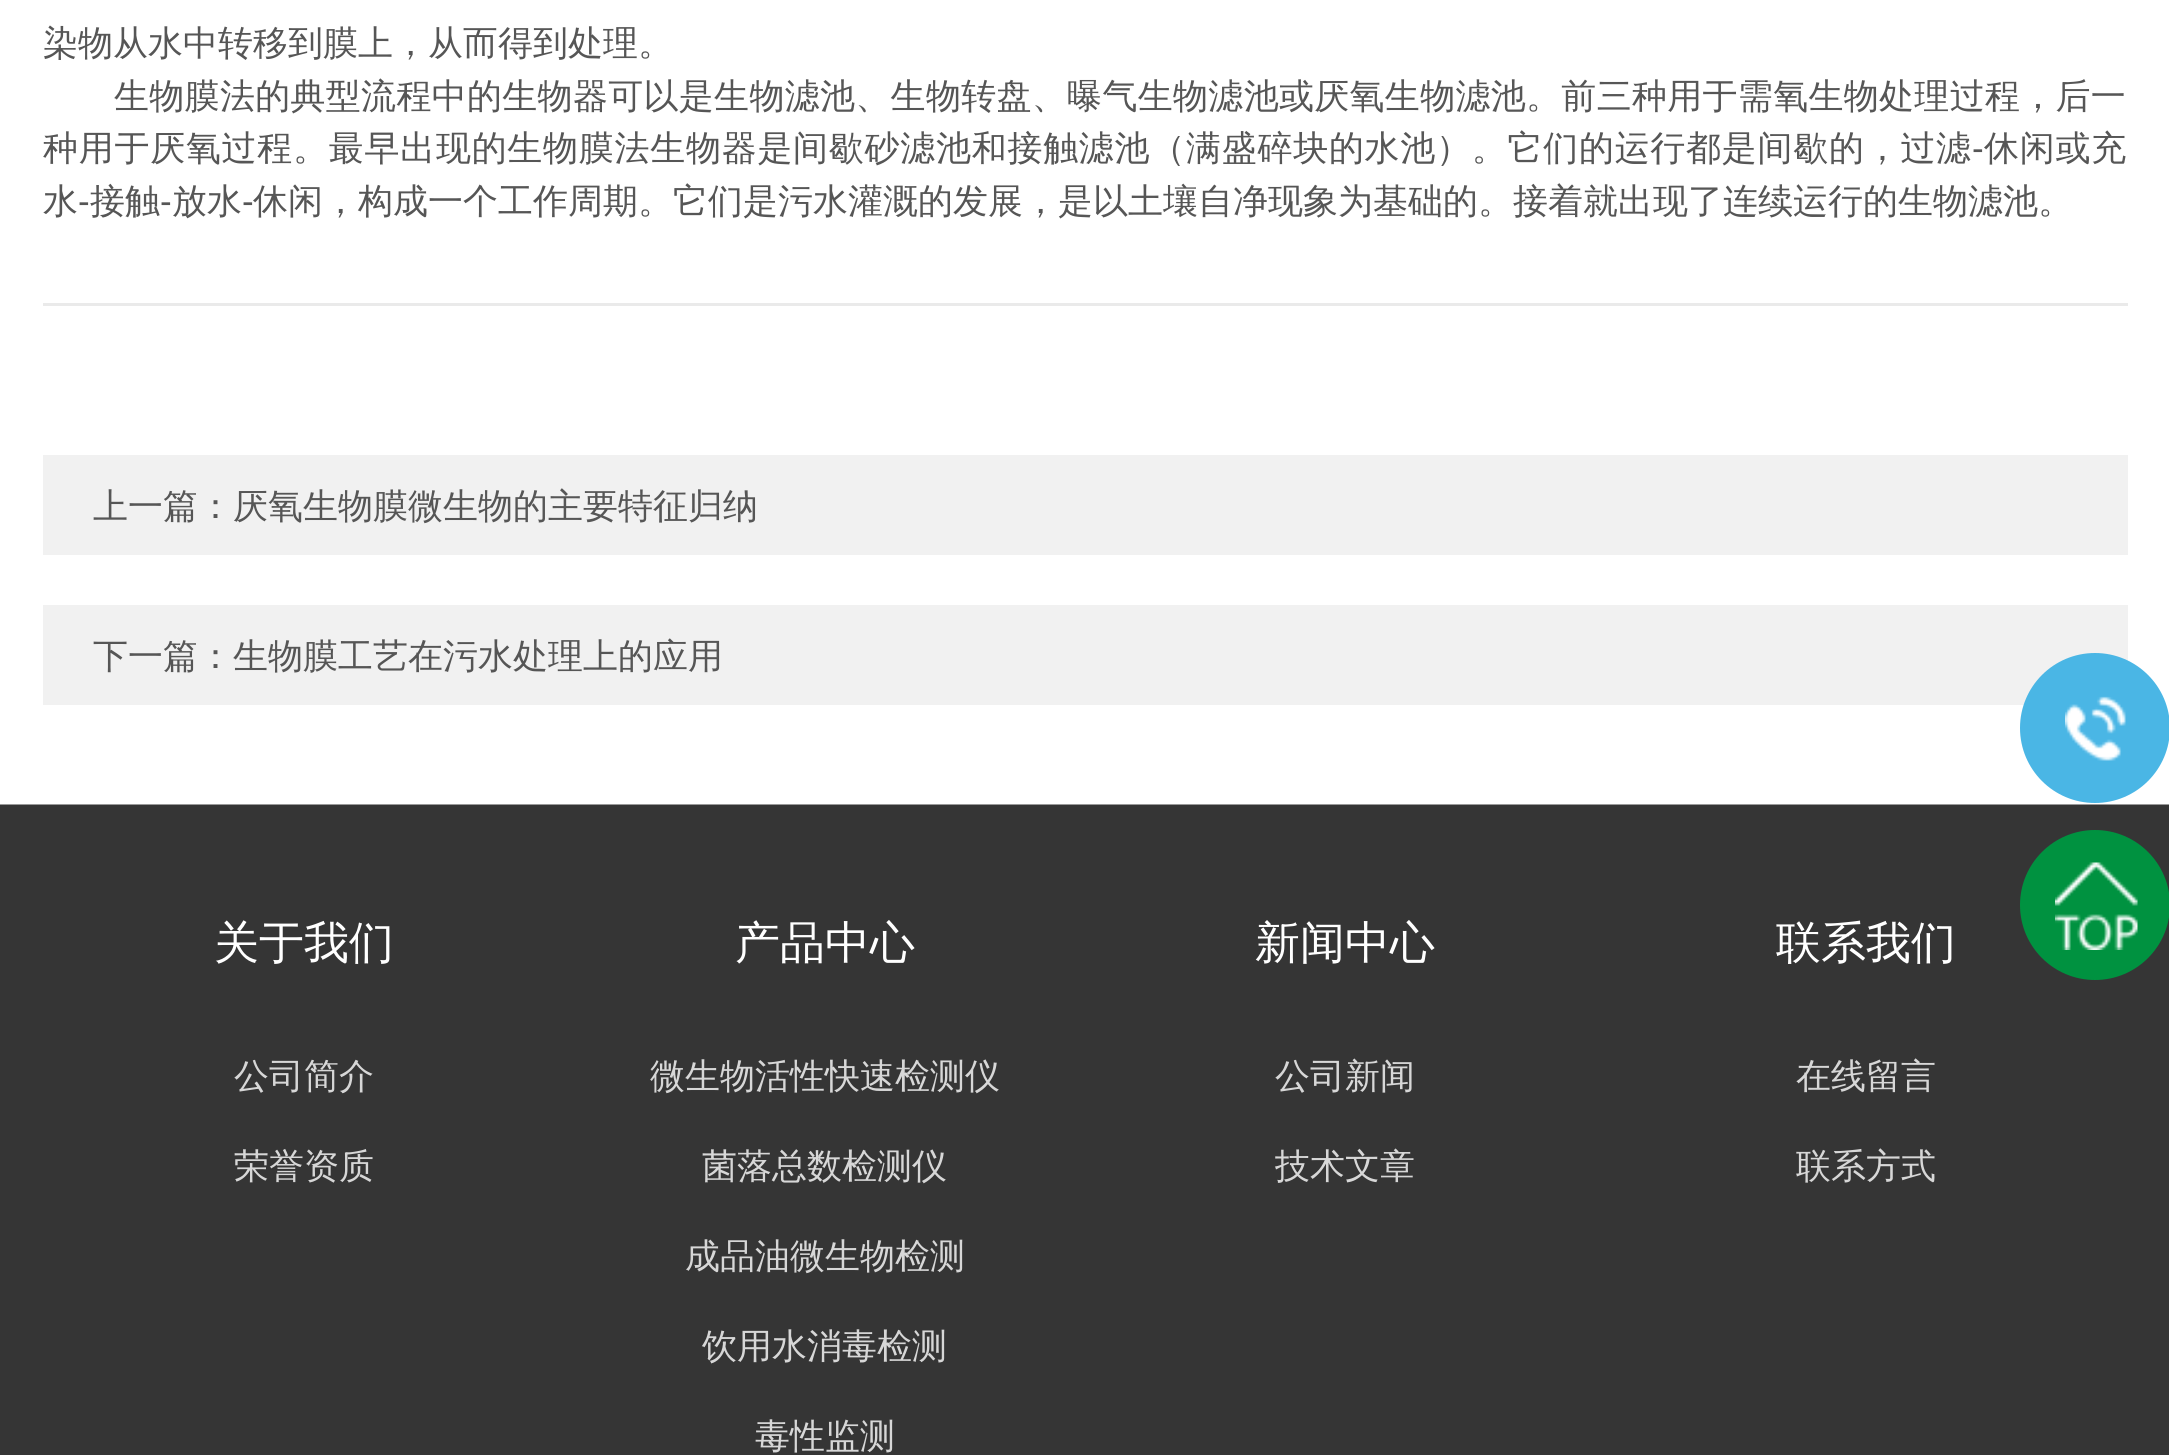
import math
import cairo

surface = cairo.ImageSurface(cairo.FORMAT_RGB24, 2169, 1455)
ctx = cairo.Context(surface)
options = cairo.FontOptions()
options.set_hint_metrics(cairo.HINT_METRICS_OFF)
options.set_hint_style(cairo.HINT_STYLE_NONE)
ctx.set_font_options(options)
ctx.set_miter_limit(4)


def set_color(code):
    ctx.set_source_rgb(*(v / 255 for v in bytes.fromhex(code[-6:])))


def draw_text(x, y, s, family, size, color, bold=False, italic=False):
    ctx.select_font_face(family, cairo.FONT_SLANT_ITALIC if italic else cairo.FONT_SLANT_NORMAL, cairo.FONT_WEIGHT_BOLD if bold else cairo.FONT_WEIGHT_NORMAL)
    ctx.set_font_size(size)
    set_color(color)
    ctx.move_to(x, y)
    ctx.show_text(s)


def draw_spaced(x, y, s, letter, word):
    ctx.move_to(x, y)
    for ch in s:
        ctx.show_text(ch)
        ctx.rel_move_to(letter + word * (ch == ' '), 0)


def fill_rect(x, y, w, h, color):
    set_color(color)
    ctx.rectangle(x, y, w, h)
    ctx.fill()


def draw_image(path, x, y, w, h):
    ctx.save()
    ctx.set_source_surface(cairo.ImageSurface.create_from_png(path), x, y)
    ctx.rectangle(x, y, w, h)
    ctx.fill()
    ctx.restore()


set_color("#ffffff")
ctx.paint()
fill_rect(43, 303, 2085, 3, "#eaeaea")
draw_text(43, 55, "染物从水中转移到膜上，从而得到处理。", "WenQuanYi Zen Hei Medium", 35, "#565656")
draw_spaced(114, 108, "生物膜法的典型流程中的生物器可以是生物滤池、生物转盘、曝气生物滤池或厌氧生物滤池。前三种用于需氧生物处理过程，后一", 0.3, 0)
draw_spaced(43, 160, "种用于厌氧过程。最早出现的生物膜法生物器是间歇砂滤池和接触滤池（满盛碎块的水池）。它们的运行都是间歇的，过滤", 0.72, 0)
ctx.select_font_face("Liberation Sans")
draw_spaced(1972, 160, "-", 0.72, 0)
ctx.select_font_face("WenQuanYi Zen Hei Medium")
draw_spaced(1984, 160, "休闲或充", 0.72, 0)
draw_text(43, 213, "水", "WenQuanYi Zen Hei Medium", 35, "#565656")
draw_text(78, 213, "-", "Liberation Sans", 35, "#565656")
draw_text(90, 213, "接触", "WenQuanYi Zen Hei Medium", 35, "#565656")
draw_text(160, 213, "-", "Liberation Sans", 35, "#565656")
draw_text(172, 213, "放水", "WenQuanYi Zen Hei Medium", 35, "#565656")
draw_text(242, 213, "-", "Liberation Sans", 35, "#565656")
draw_text(253, 213, "休闲，构成一个工作周期。它们是污水灌溉的发展，是以土壤自净现象为基础的。接着就出现了连续运行的生物滤池。", "WenQuanYi Zen Hei Medium", 35, "#565656")
fill_rect(43, 455, 2085, 100, "#f1f1f1")
draw_text(93, 518, "上一篇：厌氧生物膜微生物的主要特征归纳", "WenQuanYi Zen Hei Medium", 35, "#565656")
fill_rect(43, 605, 2085, 100, "#f1f1f1")
draw_text(93, 668, "下一篇：生物膜工艺在污水处理上的应用", "WenQuanYi Zen Hei Medium", 35, "#565656")
set_color("#4ab6e5")
ctx.new_path()
ctx.arc(2095, 728, 75, 0, 2 * math.pi)
ctx.fill()
draw_image("assets/img1.png", 2065, 696, 61, 65)
fill_rect(0, 805, 2169, 650, "#353535")
set_color("#009240")
ctx.arc(2095, 905, 75, 0, 2 * math.pi)
ctx.fill()
draw_image("assets/img2.png", 2055, 862, 83, 88)
draw_image("assets/img3.png", 0, 804, 2169, 1)
draw_text(214, 958, "关于我们", "WenQuanYi Zen Hei Medium", 45, "#ffffff")
draw_text(234, 1088, "公司简介", "WenQuanYi Zen Hei Medium", 35, "#d7d7d7")
draw_text(234, 1178, "荣誉资质", "WenQuanYi Zen Hei Medium", 35, "#d7d7d7")
draw_text(735, 958, "产品中心", "WenQuanYi Zen Hei Medium", 45, "#ffffff")
draw_text(650, 1088, "微生物活性快速检测仪", "WenQuanYi Zen Hei Medium", 35, "#d7d7d7")
draw_text(702, 1178, "菌落总数检测仪", "WenQuanYi Zen Hei Medium", 35, "#d7d7d7")
draw_text(685, 1268, "成品油微生物检测", "WenQuanYi Zen Hei Medium", 35, "#d7d7d7")
draw_text(702, 1358, "饮用水消毒检测", "WenQuanYi Zen Hei Medium", 35, "#d7d7d7")
draw_text(755, 1448, "毒性监测", "WenQuanYi Zen Hei Medium", 35, "#d7d7d7")
draw_text(1255, 958, "新闻中心", "WenQuanYi Zen Hei Medium", 45, "#ffffff")
draw_text(1275, 1088, "公司新闻", "WenQuanYi Zen Hei Medium", 35, "#d7d7d7")
draw_text(1275, 1178, "技术文章", "WenQuanYi Zen Hei Medium", 35, "#d7d7d7")
draw_text(1776, 958, "联系我们", "WenQuanYi Zen Hei Medium", 45, "#ffffff")
draw_text(1796, 1088, "在线留言", "WenQuanYi Zen Hei Medium", 35, "#d7d7d7")
draw_text(1796, 1178, "联系方式", "WenQuanYi Zen Hei Medium", 35, "#d7d7d7")
surface.write_to_png("output.png")
